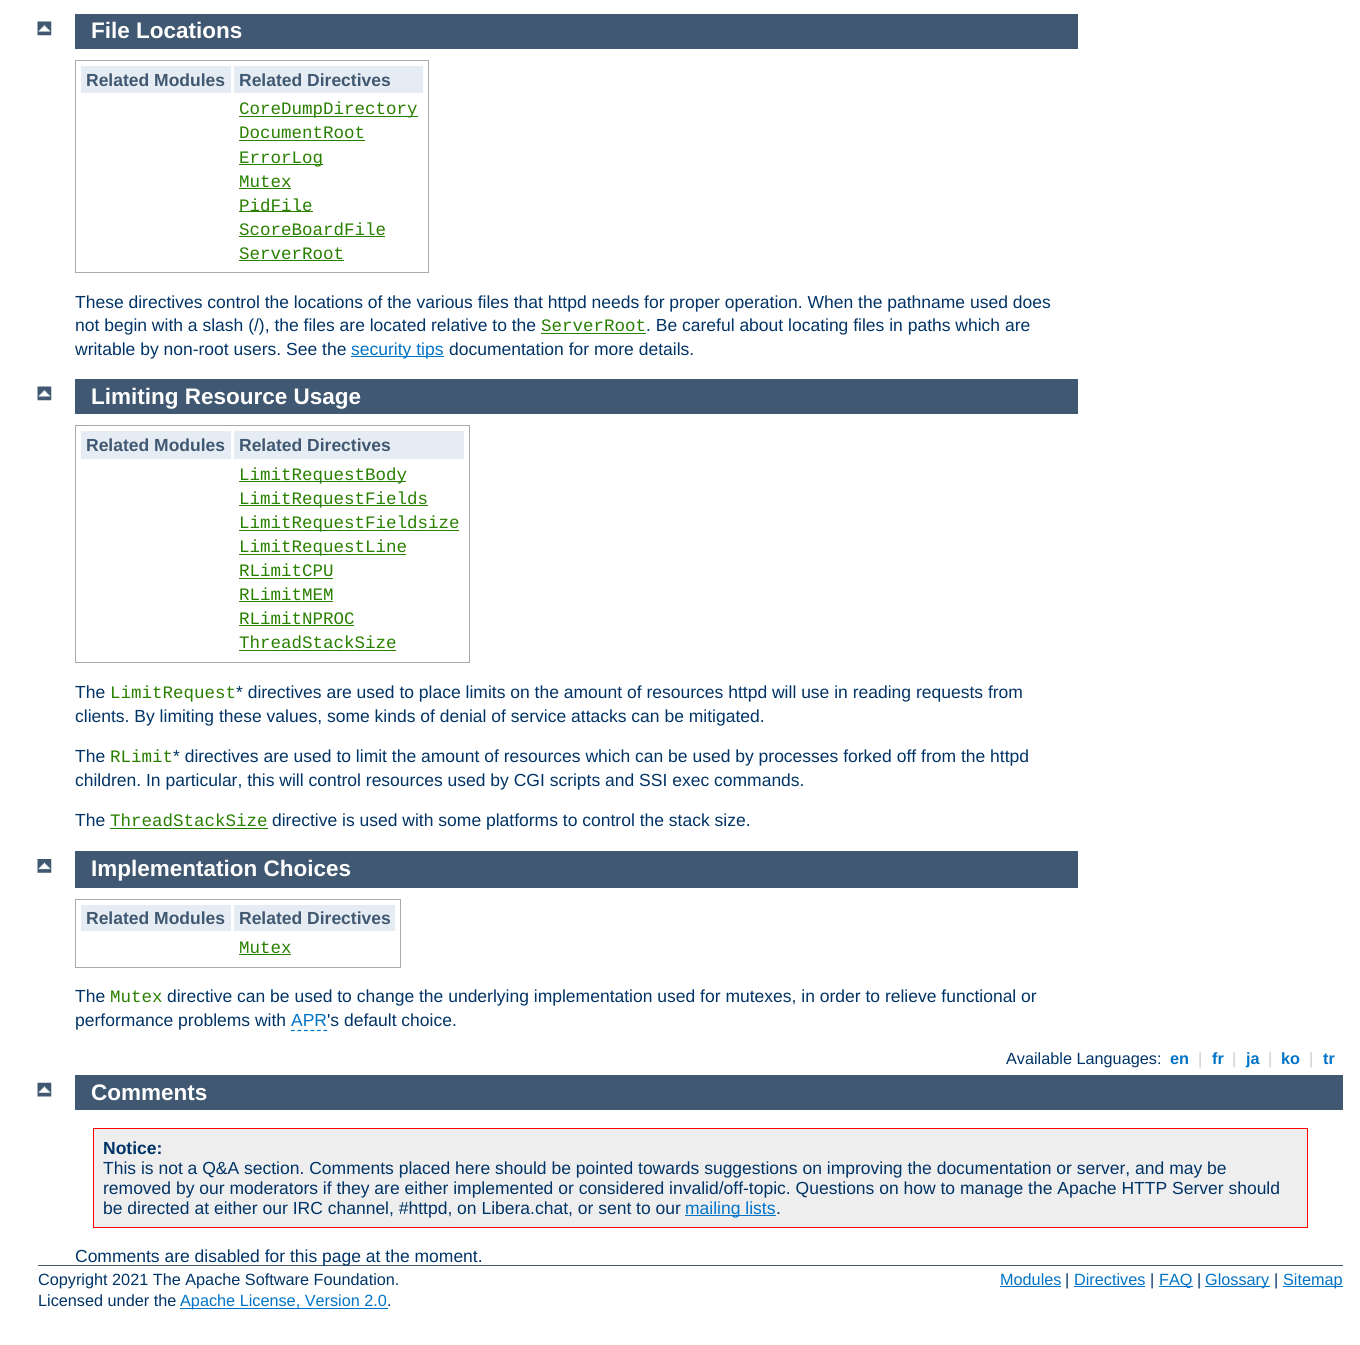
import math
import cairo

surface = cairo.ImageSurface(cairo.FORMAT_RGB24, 1360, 1345)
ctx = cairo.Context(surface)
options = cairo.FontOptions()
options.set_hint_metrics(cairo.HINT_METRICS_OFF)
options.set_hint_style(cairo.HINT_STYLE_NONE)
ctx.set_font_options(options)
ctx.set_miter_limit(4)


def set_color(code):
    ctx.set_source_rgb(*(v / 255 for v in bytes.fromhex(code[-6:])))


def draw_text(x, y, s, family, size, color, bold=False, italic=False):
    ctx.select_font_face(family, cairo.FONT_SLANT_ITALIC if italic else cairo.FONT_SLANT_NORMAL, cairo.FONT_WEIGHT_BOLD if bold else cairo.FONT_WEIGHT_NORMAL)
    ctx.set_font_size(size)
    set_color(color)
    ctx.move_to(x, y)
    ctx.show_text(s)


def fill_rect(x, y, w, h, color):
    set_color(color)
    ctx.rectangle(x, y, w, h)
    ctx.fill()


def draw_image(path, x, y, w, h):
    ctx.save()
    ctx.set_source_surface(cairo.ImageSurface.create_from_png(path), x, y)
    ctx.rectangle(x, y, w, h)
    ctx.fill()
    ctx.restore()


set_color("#ffffff")
ctx.paint()
draw_image("assets/img1.png", 37, 21, 15, 15)
fill_rect(75, 14, 1003, 35, "#405871")
draw_text(91, 38, "File Locations", "Liberation Sans", 22.5, "#ffffff", bold=True)
ctx.rectangle(75.5, 60.5, 353, 212)
set_color("#aaaaaa")
ctx.set_line_width(1)
ctx.stroke()
fill_rect(81, 66, 150, 27, "#e5ecf3")
draw_text(86, 86, "Related Modules", "Liberation Sans", 17.5, "#405871", bold=True)
fill_rect(234, 66, 189, 27, "#e5ecf3")
draw_text(239, 86, "Related Directives", "Liberation Sans", 17.5, "#405871", bold=True)
fill_rect(239, 116, 179, 1, "#287f00")
draw_text(239, 114, "CoreDumpDirectory", "Liberation Mono", 17.5, "#287f00")
draw_text(239, 138, "DocumentRoot", "Liberation Mono", 17.5, "#287f00")
fill_rect(239, 140, 126, 1, "#287f00")
fill_rect(239, 164, 84, 1, "#287f00")
draw_text(239, 163, "ErrorLog", "Liberation Mono", 17.5, "#287f00")
draw_text(239, 187, "Mutex", "Liberation Mono", 17.5, "#287f00")
fill_rect(239, 188, 52, 1, "#287f00")
fill_rect(239, 211, 74, 1, "#287f00")
draw_text(239, 211, "PidFile", "Liberation Mono", 17.5, "#287f00")
draw_text(239, 235, "ScoreBoardFile", "Liberation Mono", 17.5, "#287f00")
fill_rect(239, 236, 146, 1, "#287f00")
draw_text(239, 259, "ServerRoot", "Liberation Mono", 17.5, "#287f00")
fill_rect(239, 260, 105, 1, "#287f00")
draw_text(75, 308, "These directives control the locations of the various files that httpd needs for proper operation. When the pathname used does", "Liberation Sans", 17.5, "#003366")
draw_text(75, 331, "not begin with a slash (/), the files are located relative to the", "Liberation Sans", 17.5, "#003366")
draw_text(541, 331, "ServerRoot", "Liberation Mono", 17.5, "#287f00")
fill_rect(541, 333, 105, 1, "#287f00")
draw_text(646, 331, ". Be careful about locating files in paths which are", "Liberation Sans", 17.5, "#003366")
draw_text(75, 355, "writable by non-root users. See the", "Liberation Sans", 17.5, "#003366")
fill_rect(351, 356, 93, 1, "#0073c7")
draw_text(351, 355, "security tips", "Liberation Sans", 17.5, "#0073c7")
draw_text(449, 355, "documentation for more details.", "Liberation Sans", 17.5, "#003366")
draw_image("assets/img2.png", 37, 386, 15, 15)
fill_rect(75, 379, 1003, 35, "#405871")
draw_text(91, 404, "Limiting Resource Usage", "Liberation Sans", 22.5, "#ffffff", bold=True)
ctx.rectangle(75.5, 425.5, 394, 237)
set_color("#aaaaaa")
ctx.stroke()
fill_rect(81, 431, 150, 28, "#e5ecf3")
draw_text(86, 451, "Related Modules", "Liberation Sans", 17.5, "#405871", bold=True)
fill_rect(234, 431, 230, 28, "#e5ecf3")
draw_text(239, 451, "Related Directives", "Liberation Sans", 17.5, "#405871", bold=True)
fill_rect(239, 481, 167, 1, "#287f00")
draw_text(239, 480, "LimitRequestBody", "Liberation Mono", 17.5, "#287f00")
fill_rect(239, 505, 189, 1, "#287f00")
draw_text(239, 504, "LimitRequestFields", "Liberation Mono", 17.5, "#287f00")
fill_rect(239, 530, 220, 1, "#287f00")
draw_text(239, 528, "LimitRequestFieldsize", "Liberation Mono", 17.5, "#287f00")
fill_rect(239, 554, 167, 1, "#287f00")
draw_text(239, 552, "LimitRequestLine", "Liberation Mono", 17.5, "#287f00")
draw_text(239, 576, "RLimitCPU", "Liberation Mono", 17.5, "#287f00")
fill_rect(239, 578, 94, 1, "#287f00")
draw_text(239, 600, "RLimitMEM", "Liberation Mono", 17.5, "#287f00")
fill_rect(239, 601, 94, 1, "#287f00")
draw_text(239, 624, "RLimitNPROC", "Liberation Mono", 17.5, "#287f00")
fill_rect(239, 625, 115, 1, "#287f00")
draw_text(239, 648, "ThreadStackSize", "Liberation Mono", 17.5, "#287f00")
fill_rect(239, 650, 157, 1, "#287f00")
draw_text(75, 698, "The", "Liberation Sans", 17.5, "#003366")
draw_text(110, 698, "LimitRequest", "Liberation Mono", 17.5, "#287f00")
draw_text(236, 698, "* directives are used to place limits on the amount of resources httpd will use in reading requests from", "Liberation Sans", 17.5, "#003366")
draw_text(75, 722, "clients. By limiting these values, some kinds of denial of service attacks can be mitigated.", "Liberation Sans", 17.5, "#003366")
draw_text(75, 762, "The", "Liberation Sans", 17.5, "#003366")
draw_text(110, 762, "RLimit", "Liberation Mono", 17.5, "#287f00")
draw_text(173, 762, "* directives are used to limit the amount of resources which can be used by processes forked off from the httpd", "Liberation Sans", 17.5, "#003366")
draw_text(75, 786, "children. In particular, this will control resources used by CGI scripts and SSI exec commands.", "Liberation Sans", 17.5, "#003366")
draw_text(75, 826, "The", "Liberation Sans", 17.5, "#003366")
draw_text(110, 826, "ThreadStackSize", "Liberation Mono", 17.5, "#287f00")
fill_rect(110, 828, 158, 1, "#287f00")
draw_text(272, 826, "directive is used with some platforms to control the stack size.", "Liberation Sans", 17.5, "#003366")
draw_image("assets/img3.png", 37, 859, 15, 14)
fill_rect(75, 851, 1003, 37, "#405871")
draw_text(91, 876, "Implementation Choices", "Liberation Sans", 22.5, "#ffffff", bold=True)
ctx.rectangle(75.5, 899.5, 325, 68)
set_color("#aaaaaa")
ctx.stroke()
fill_rect(81, 905, 150, 26, "#e5ecf3")
draw_text(86, 924, "Related Modules", "Liberation Sans", 17.5, "#405871", bold=True)
fill_rect(234, 905, 161, 26, "#e5ecf3")
draw_text(239, 924, "Related Directives", "Liberation Sans", 17.5, "#405871", bold=True)
draw_text(239, 953, "Mutex", "Liberation Mono", 17.5, "#287f00")
fill_rect(239, 954, 52, 1, "#287f00")
draw_text(75, 1002, "The", "Liberation Sans", 17.5, "#003366")
draw_text(110, 1002, "Mutex", "Liberation Mono", 17.5, "#287f00")
draw_text(167, 1002, "directive can be used to change the underlying implementation used for mutexes, in order to relieve functional or", "Liberation Sans", 17.5, "#003366")
draw_text(75, 1026, "performance problems with", "Liberation Sans", 17.5, "#003366")
draw_text(291, 1026, "APR", "Liberation Sans", 17.5, "#0073c7")
ctx.new_path()
ctx.move_to(291, 1030.5)
ctx.line_to(327.5, 1030.5)
ctx.set_line_width(1.2)
ctx.set_dash([3.75, 2.75])
ctx.stroke()
draw_text(327, 1026, "'s default choice.", "Liberation Sans", 17.5, "#003366")
draw_text(1006, 1064, "Available Languages:", "Liberation Sans", 16.25, "#003366")
draw_text(1170, 1064, "en", "Liberation Sans", 16.25, "#0073c7", bold=True)
draw_text(1198, 1064, "|", "Liberation Sans", 16.25, "#cccccc")
draw_text(1212, 1064, "fr", "Liberation Sans", 16.25, "#0073c7", bold=True)
draw_text(1232, 1064, "|", "Liberation Sans", 16.25, "#cccccc")
draw_text(1246, 1064, "ja", "Liberation Sans", 16.25, "#0073c7", bold=True)
draw_text(1268, 1064, "|", "Liberation Sans", 16.25, "#cccccc")
draw_text(1281, 1064, "ko", "Liberation Sans", 16.25, "#0073c7", bold=True)
draw_text(1309, 1064, "|", "Liberation Sans", 16.25, "#cccccc")
draw_text(1323, 1064, "tr", "Liberation Sans", 16.25, "#0073c7", bold=True)
draw_image("assets/img4.png", 37, 1082, 15, 15)
fill_rect(75, 1075, 1268, 35, "#405871")
draw_text(91, 1100, "Comments", "Liberation Sans", 22.5, "#ffffff", bold=True)
set_color("#eeeeee")
ctx.rectangle(93.5, 1128.5, 1214, 99)
ctx.fill_preserve()
set_color("#ff0000")
ctx.set_line_width(1)
ctx.set_dash([])
ctx.stroke()
draw_text(103, 1154, "Notice:", "Liberation Sans", 17.5, "#003366", bold=True)
draw_text(103, 1174, "This is not a Q&A section. Comments placed here should be pointed towards suggestions on improving the documentation or server, and may be", "Liberation Sans", 17.5, "#003366")
draw_text(103, 1194, "removed by our moderators if they are either implemented or considered invalid/off-topic. Questions on how to manage the Apache HTTP Server should", "Liberation Sans", 17.5, "#003366")
draw_text(103, 1214, "be directed at either our IRC channel, #httpd, on Libera.chat, or sent to our", "Liberation Sans", 17.5, "#003366")
fill_rect(685, 1215, 91, 1, "#0073c7")
draw_text(685, 1214, "mailing lists", "Liberation Sans", 17.5, "#0073c7")
draw_text(776, 1214, ".", "Liberation Sans", 17.5, "#003366")
fill_rect(38, 1265, 1305, 1, "#405871")
draw_text(75, 1262, "Comments are disabled for this page at the moment.", "Liberation Sans", 17.5, "#003366")
draw_text(38, 1285, "Copyright 2021 The Apache Software Foundation.", "Liberation Sans", 16.25, "#003366")
draw_text(38, 1306, "Licensed under the", "Liberation Sans", 16.25, "#003366")
fill_rect(180, 1308, 208, 1, "#0073c7")
draw_text(180, 1306, "Apache License, Version 2.0", "Liberation Sans", 16.25, "#0073c7")
draw_text(387, 1306, ".", "Liberation Sans", 16.25, "#003366")
draw_text(1000, 1285, "Modules", "Liberation Sans", 16.25, "#0073c7")
fill_rect(1000, 1286, 61, 1, "#0073c7")
draw_text(1065, 1285, "|", "Liberation Sans", 16.25, "#003366")
draw_text(1074, 1285, "Directives", "Liberation Sans", 16.25, "#0073c7")
fill_rect(1074, 1286, 71, 1, "#0073c7")
draw_text(1150, 1285, "|", "Liberation Sans", 16.25, "#003366")
fill_rect(1159, 1286, 34, 1, "#0073c7")
draw_text(1159, 1285, "FAQ", "Liberation Sans", 16.25, "#0073c7")
draw_text(1197, 1285, "|", "Liberation Sans", 16.25, "#003366")
fill_rect(1205, 1286, 65, 1, "#0073c7")
draw_text(1205, 1285, "Glossary", "Liberation Sans", 16.25, "#0073c7")
draw_text(1274, 1285, "|", "Liberation Sans", 16.25, "#003366")
fill_rect(1283, 1286, 60, 1, "#0073c7")
draw_text(1283, 1285, "Sitemap", "Liberation Sans", 16.25, "#0073c7")
surface.write_to_png("output.png")
